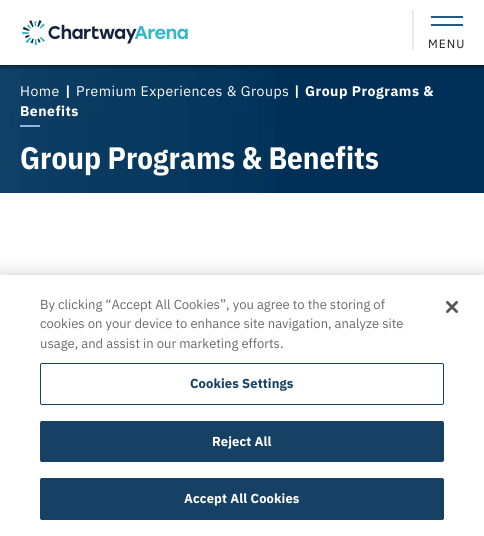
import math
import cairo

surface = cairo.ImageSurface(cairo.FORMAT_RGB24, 484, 536)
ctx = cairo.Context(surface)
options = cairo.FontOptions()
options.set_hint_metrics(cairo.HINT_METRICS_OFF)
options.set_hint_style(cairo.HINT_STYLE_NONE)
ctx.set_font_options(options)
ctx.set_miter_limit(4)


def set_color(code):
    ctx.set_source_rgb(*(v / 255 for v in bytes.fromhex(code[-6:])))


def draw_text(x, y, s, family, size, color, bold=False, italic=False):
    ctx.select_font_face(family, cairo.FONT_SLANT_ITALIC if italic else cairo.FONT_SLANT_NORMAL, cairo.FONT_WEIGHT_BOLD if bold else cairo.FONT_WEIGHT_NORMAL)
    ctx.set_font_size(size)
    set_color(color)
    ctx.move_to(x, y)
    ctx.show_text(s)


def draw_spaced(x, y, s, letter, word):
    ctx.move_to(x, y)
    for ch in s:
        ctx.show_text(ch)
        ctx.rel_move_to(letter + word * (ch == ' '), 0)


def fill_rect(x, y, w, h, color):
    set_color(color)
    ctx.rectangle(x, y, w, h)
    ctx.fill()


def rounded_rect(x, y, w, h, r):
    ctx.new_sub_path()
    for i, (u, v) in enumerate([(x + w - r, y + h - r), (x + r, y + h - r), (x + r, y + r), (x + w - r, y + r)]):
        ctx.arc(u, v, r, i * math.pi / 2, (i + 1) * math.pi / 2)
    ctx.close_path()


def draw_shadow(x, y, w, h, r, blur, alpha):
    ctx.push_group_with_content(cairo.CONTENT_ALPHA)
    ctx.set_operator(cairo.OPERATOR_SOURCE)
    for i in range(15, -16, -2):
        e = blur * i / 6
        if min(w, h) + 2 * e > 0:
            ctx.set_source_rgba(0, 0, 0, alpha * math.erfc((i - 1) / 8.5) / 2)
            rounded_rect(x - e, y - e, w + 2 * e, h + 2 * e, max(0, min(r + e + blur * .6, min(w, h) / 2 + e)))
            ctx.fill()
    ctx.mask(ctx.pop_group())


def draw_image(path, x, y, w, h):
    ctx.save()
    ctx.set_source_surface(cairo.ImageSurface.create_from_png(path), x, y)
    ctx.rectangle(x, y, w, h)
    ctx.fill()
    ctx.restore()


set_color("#003057")
ctx.paint()
draw_image("assets/img2.png", 0, 65, 274, 128)
set_color("#000000")
draw_shadow(0, 2, 484, 65, 0, 2, 0.5)
fill_rect(0, 0, 484, 65, "#ffffff")
draw_image("assets/img1.png", 22, 20, 166, 25)
fill_rect(412, 10, 2, 40, "#eaeaea")
fill_rect(431, 16, 32, 2, "#255a84")
fill_rect(431, 24, 32, 2, "#255a84")
ctx.select_font_face("IBM Plex Sans")
ctx.set_font_size(12)
set_color("#1a1a1a")
draw_spaced(428, 48, "MENU", 1, 0)
ctx.set_font_size(14)
set_color("#ffffff")
draw_spaced(20, 96, "Home", 0.5, 0)
ctx.select_font_face("IBM Plex Sans", cairo.FONT_SLANT_NORMAL, cairo.FONT_WEIGHT_BOLD)
draw_spaced(65, 96, "|", 0.5, 0)
ctx.select_font_face("IBM Plex Sans")
draw_spaced(76, 96, "Premium Experiences & Groups", 0.5, 0)
ctx.select_font_face("IBM Plex Sans", cairo.FONT_SLANT_NORMAL, cairo.FONT_WEIGHT_BOLD)
draw_spaced(294, 96, "|", 0.5, 0)
draw_spaced(305, 96, "Group Programs &", 0.5, 0)
draw_spaced(20, 116, "Benefits", 0.5, 0)
fill_rect(20, 125, 20, 2, "#8db6e4")
draw_text(20, 169, "Group Programs & Benefits", "IBM Plex Sans Condensed", 31, "#ffffff", bold=True)
fill_rect(0, 193, 484, 82, "#ffffff")
set_color("#000000")
draw_shadow(0, 275, 484, 261, 0, 9, 0.2)
fill_rect(0, 275, 484, 261, "#ffffff")
draw_text(40, 309, "By clicking “Accept All Cookies”, you agree to the storing of", "IBM Plex Sans", 13, "#696969")
draw_text(40, 328, "cookies on your device to enhance site navigation, analyze site", "IBM Plex Sans", 13, "#696969")
draw_text(40, 348, "usage, and assist in our marketing efforts.", "IBM Plex Sans", 13, "#696969")
rounded_rect(40.5, 363.5, 403, 41, 1.5)
set_color("#164164")
ctx.set_line_width(1)
ctx.stroke()
ctx.select_font_face("IBM Plex Sans", cairo.FONT_SLANT_NORMAL, cairo.FONT_WEIGHT_BOLD)
draw_spaced(190, 388, "Cookies Settings", 0.1, 0)
rounded_rect(40.5, 421.5, 403, 40, 1.5)
ctx.fill_preserve()
ctx.stroke()
set_color("#ffffff")
draw_spaced(212, 446, "Reject All", 0.1, 0)
set_color("#164164")
rounded_rect(40.5, 478.5, 403, 41, 1.5)
ctx.fill_preserve()
ctx.stroke()
set_color("#ffffff")
draw_spaced(184, 503, "Accept All Cookies", 0.1, 0)
draw_image("assets/img3.png", 446, 301, 12, 12)
surface.write_to_png("output.png")
